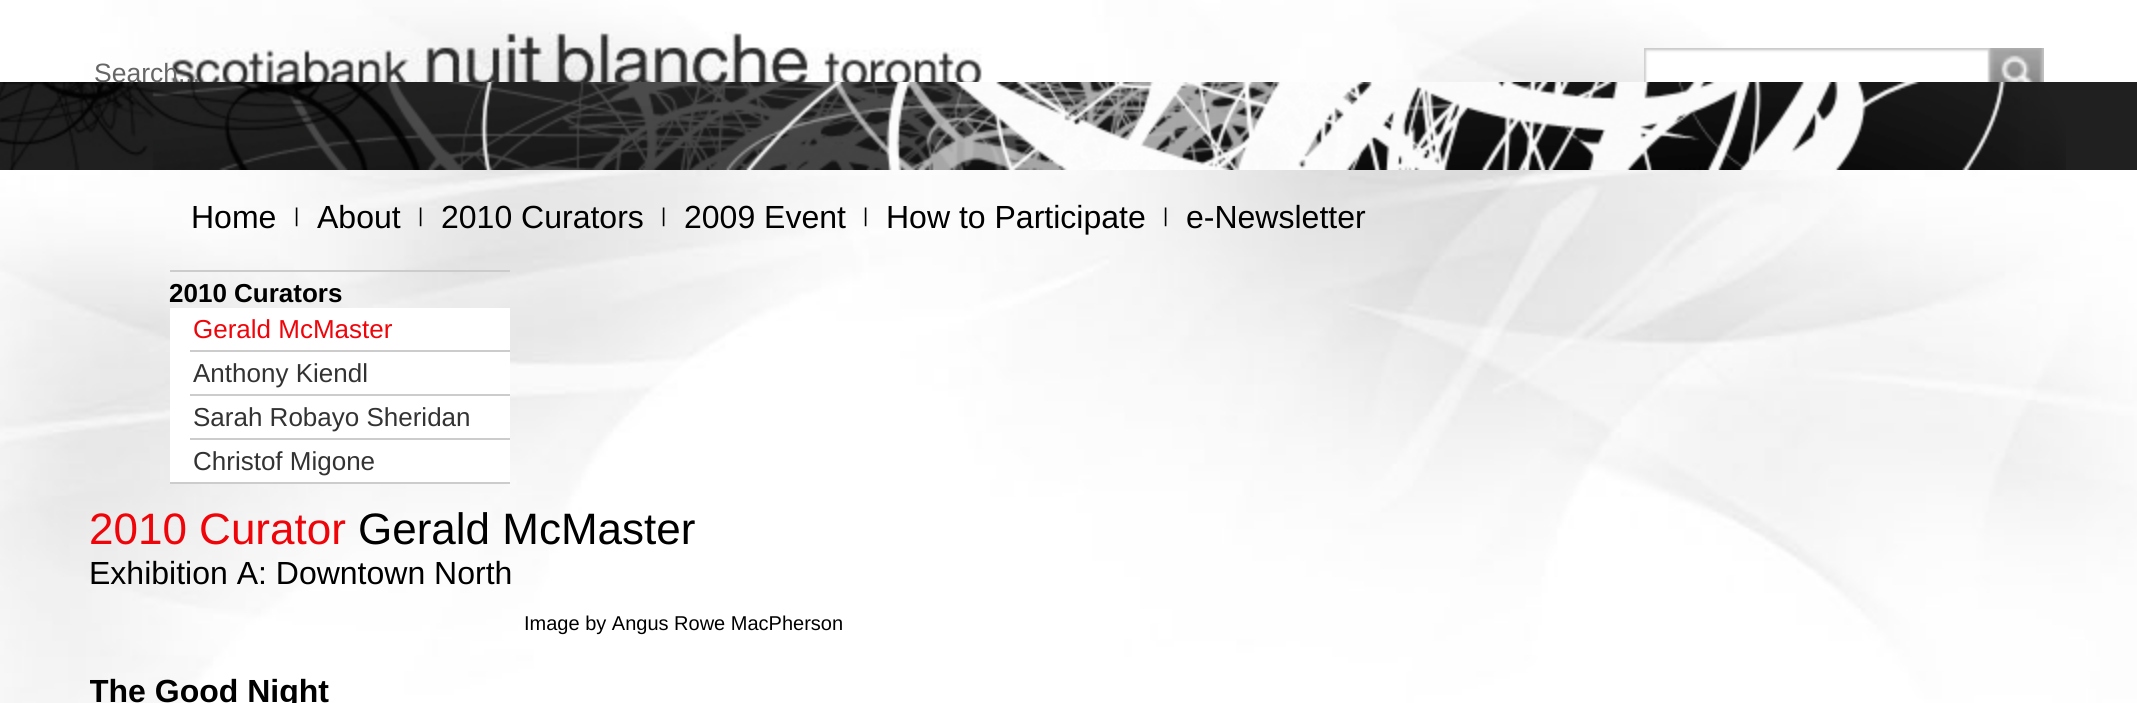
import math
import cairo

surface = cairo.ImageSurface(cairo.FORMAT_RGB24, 2137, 703)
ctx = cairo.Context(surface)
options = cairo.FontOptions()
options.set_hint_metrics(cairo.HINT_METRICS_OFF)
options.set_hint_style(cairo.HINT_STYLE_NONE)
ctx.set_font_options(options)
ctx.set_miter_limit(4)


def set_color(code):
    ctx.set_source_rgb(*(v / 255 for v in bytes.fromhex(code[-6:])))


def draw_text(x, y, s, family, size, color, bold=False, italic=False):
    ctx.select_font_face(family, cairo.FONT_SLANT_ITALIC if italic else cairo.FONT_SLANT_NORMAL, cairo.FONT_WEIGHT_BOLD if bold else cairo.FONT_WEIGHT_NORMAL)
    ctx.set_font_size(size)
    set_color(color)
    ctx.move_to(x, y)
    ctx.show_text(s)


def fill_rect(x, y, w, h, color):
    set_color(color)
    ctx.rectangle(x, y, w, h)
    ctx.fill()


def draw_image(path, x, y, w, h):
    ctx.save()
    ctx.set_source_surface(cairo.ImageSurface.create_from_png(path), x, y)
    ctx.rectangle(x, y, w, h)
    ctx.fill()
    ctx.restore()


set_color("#ffffff")
ctx.paint()
draw_image("assets/img1.png", 0, 0, 2137, 703)
draw_image("assets/img2.png", 1644, 48, 400, 34)
draw_image("assets/img3.png", 0, 82, 2066, 88)
draw_text(94, 82, "Search...", "Liberation Sans", 26.5, "#666666")
fill_rect(2066, 82, 71, 88, "#202020")
draw_text(191, 228, "Home", "Liberation Sans", 32, "#000000")
draw_text(294, 222, "|", "Liberation Sans", 20, "#000000")
draw_text(317, 228, "About", "Liberation Sans", 32, "#000000")
draw_text(418, 222, "|", "Liberation Sans", 20, "#000000")
draw_text(441, 228, "2010 Curators", "Liberation Sans", 32, "#000000")
draw_text(661, 222, "|", "Liberation Sans", 20, "#000000")
draw_text(684, 228, "2009 Event", "Liberation Sans", 32, "#000000")
draw_text(863, 222, "|", "Liberation Sans", 20, "#000000")
draw_text(886, 228, "How to Participate", "Liberation Sans", 32, "#000000")
draw_text(1163, 222, "|", "Liberation Sans", 20, "#000000")
draw_text(1186, 228, "e-Newsletter", "Liberation Sans", 32, "#000000")
fill_rect(170, 482, 340, 2, "#cccccc")
fill_rect(170, 270, 340, 2, "#cccccc")
draw_text(169, 302, "2010 Curators", "Liberation Sans", 26, "#000000", bold=True)
fill_rect(170, 308, 340, 174, "#ffffff")
draw_text(193, 338, "Gerald McMaster", "Liberation Sans", 26, "#ef0509")
fill_rect(190, 350, 320, 2, "#cccccc")
draw_text(193, 382, "Anthony Kiendl", "Liberation Sans", 26, "#333333")
fill_rect(190, 394, 320, 2, "#cccccc")
draw_text(193, 426, "Sarah Robayo Sheridan", "Liberation Sans", 26, "#333333")
fill_rect(190, 438, 320, 2, "#cccccc")
draw_text(193, 470, "Christof Migone", "Liberation Sans", 26, "#333333")
draw_text(89, 544, "2010 Curator", "Liberation Sans", 44, "#ef0509")
draw_text(358, 544, "Gerald McMaster", "Liberation Sans", 44, "#000000")
draw_text(89, 584, "Exhibition A: Downtown North", "Liberation Sans", 32, "#000000")
draw_text(524, 630, "Image by Angus Rowe MacPherson", "Liberation Sans", 20, "#000000")
ctx.save()
ctx.rectangle(90, 504, 1520, 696)
ctx.clip()
draw_text(89, 702, "The Good Night", "Liberation Sans", 32, "#000000", bold=True)
ctx.restore()
surface.write_to_png("output.png")
